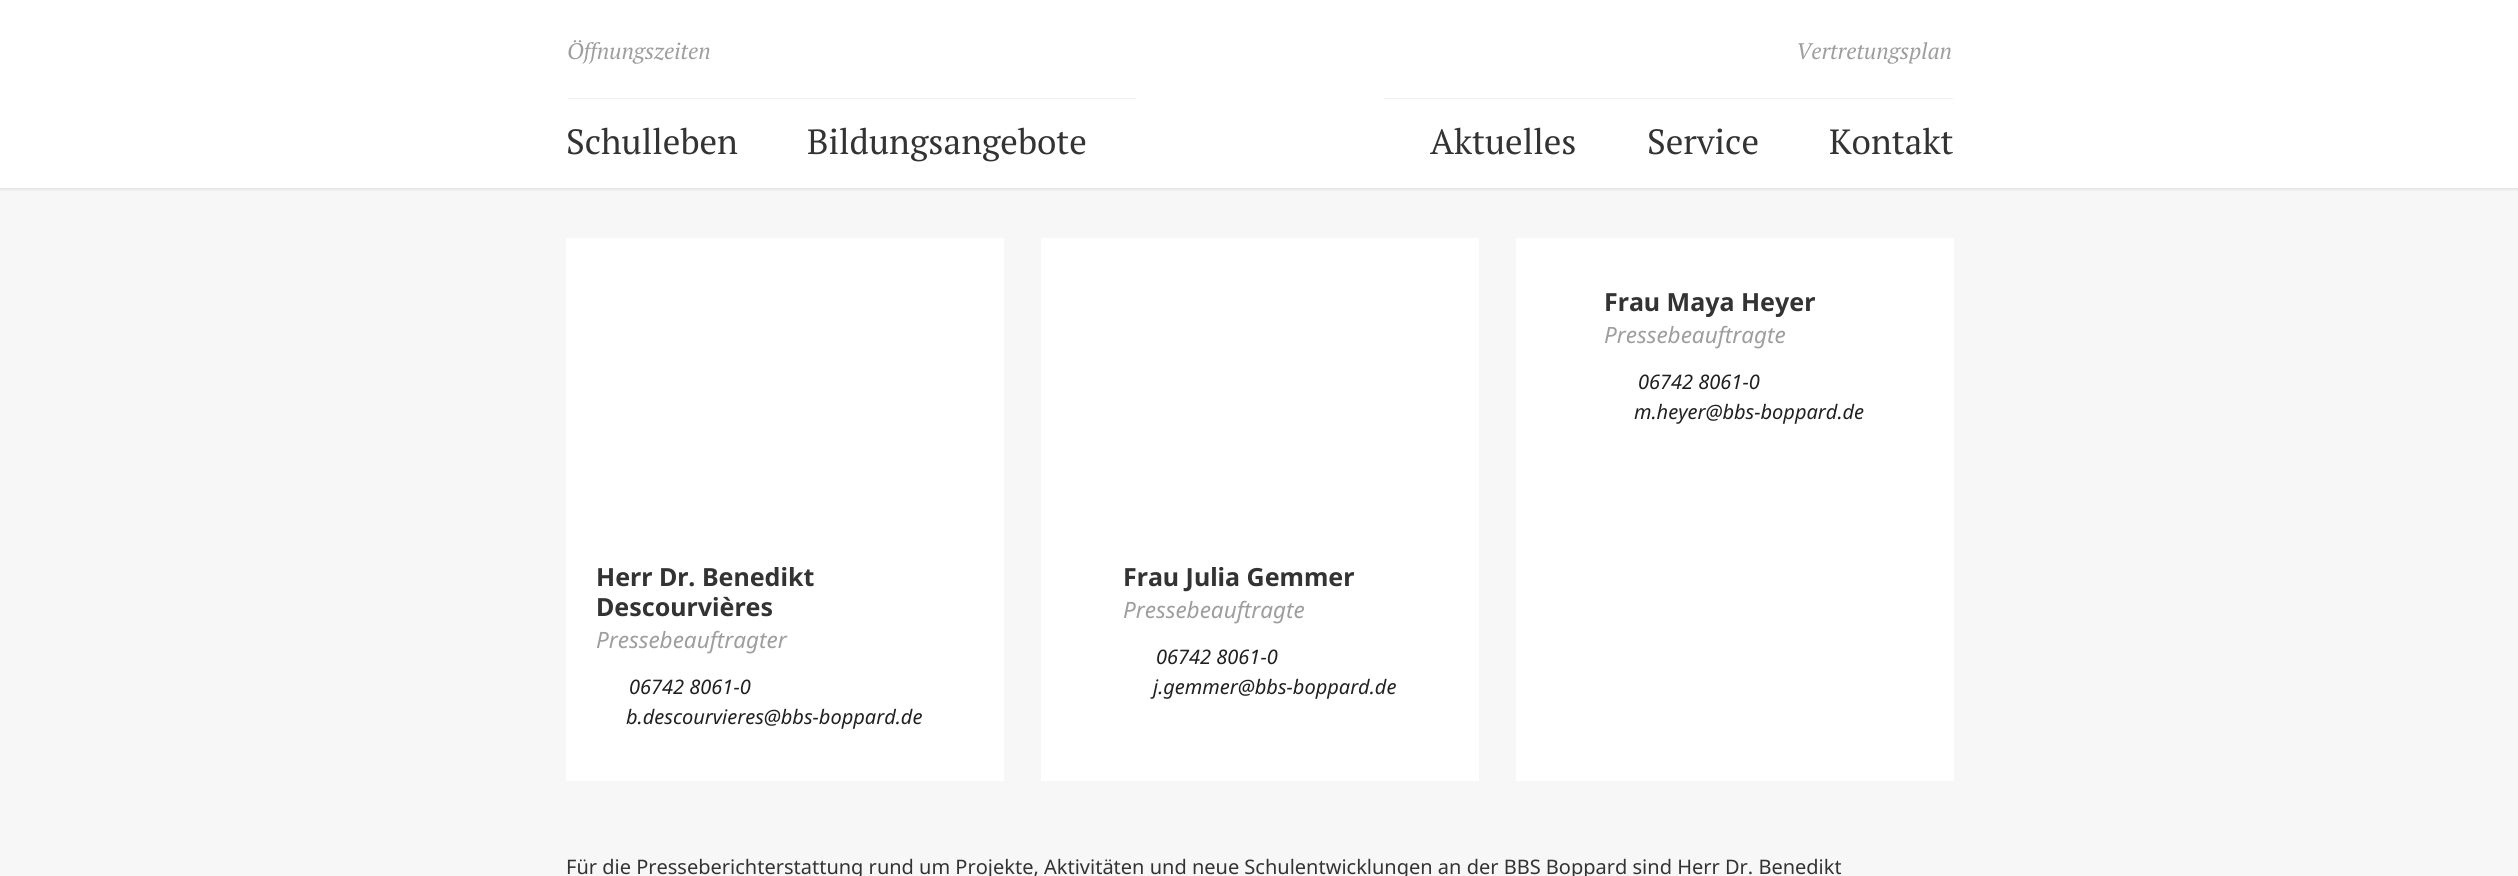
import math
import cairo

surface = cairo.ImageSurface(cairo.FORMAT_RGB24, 2518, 876)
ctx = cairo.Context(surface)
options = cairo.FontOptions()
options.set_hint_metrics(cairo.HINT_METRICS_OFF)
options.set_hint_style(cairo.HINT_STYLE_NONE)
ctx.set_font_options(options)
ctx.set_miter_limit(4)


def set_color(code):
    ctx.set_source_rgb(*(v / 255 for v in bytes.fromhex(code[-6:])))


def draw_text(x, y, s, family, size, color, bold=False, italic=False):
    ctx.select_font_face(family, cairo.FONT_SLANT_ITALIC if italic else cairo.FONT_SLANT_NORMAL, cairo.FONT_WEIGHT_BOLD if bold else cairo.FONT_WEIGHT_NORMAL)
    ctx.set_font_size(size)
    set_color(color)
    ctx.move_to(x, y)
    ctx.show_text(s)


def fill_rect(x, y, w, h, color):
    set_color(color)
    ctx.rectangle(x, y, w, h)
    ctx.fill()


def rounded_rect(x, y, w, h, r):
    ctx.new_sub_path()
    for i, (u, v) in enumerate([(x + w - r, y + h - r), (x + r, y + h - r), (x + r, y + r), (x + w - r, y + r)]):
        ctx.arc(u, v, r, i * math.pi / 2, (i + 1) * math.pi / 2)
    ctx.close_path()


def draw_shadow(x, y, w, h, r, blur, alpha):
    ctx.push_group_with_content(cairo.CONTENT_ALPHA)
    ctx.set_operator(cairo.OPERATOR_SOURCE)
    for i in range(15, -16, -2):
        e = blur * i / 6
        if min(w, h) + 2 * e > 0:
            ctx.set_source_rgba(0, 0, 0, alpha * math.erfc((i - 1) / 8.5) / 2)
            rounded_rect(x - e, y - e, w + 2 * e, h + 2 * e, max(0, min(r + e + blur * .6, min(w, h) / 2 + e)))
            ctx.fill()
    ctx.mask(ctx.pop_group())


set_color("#f7f7f7")
ctx.paint()
set_color("#000000")
draw_shadow(0, 0, 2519, 188, 0, 2, 0.2)
fill_rect(0, 0, 2518, 188, "#ffffff")
fill_rect(568, 98, 568, 1, "#eeeeee")
draw_text(567, 59, "Öffnungszeiten", "PT Serif", 22.5, "#9e9e9e", italic=True)
fill_rect(1384, 98, 569, 1, "#eeeeee")
draw_text(1796, 59, "Vertretungsplan", "PT Serif", 22.5, "#9e9e9e", italic=True)
draw_text(566, 154, "Schulleben", "PT Serif", 35, "#333333")
draw_text(807, 154, "Bildungsangebote", "PT Serif", 35, "#333333")
draw_text(1430, 154, "Aktuelles", "PT Serif", 35, "#333333")
draw_text(1647, 154, "Service", "PT Serif", 35, "#333333")
draw_text(1829, 154, "Kontakt", "PT Serif", 35, "#333333")
fill_rect(1516, 238, 438, 543, "#ffffff")
draw_text(1604, 311, "Frau Maya Heyer", "Noto Sans", 25, "#333333", bold=True)
draw_text(1604, 343, "Pressebeauftragte", "Noto Sans", 22.5, "#9e9e9e", italic=True)
draw_text(1638, 389, "06742 8061-0", "Noto Sans", 20, "#212121", italic=True)
draw_text(1634, 419, "m.heyer@bbs-boppard.de", "Noto Sans", 20, "#212121", italic=True)
fill_rect(566, 238, 438, 543, "#ffffff")
draw_text(596, 586, "Herr Dr. Benedikt", "Noto Sans", 25, "#333333", bold=True)
draw_text(596, 616, "Descourvières", "Noto Sans", 25, "#333333", bold=True)
draw_text(596, 648, "Pressebeauftragter", "Noto Sans", 22.5, "#9e9e9e", italic=True)
draw_text(629, 694, "06742 8061-0", "Noto Sans", 20, "#212121", italic=True)
draw_text(626, 724, "b.descourvieres@bbs-boppard.de", "Noto Sans", 20, "#212121", italic=True)
fill_rect(1041, 238, 438, 543, "#ffffff")
draw_text(1123, 586, "Frau Julia Gemmer", "Noto Sans", 25, "#333333", bold=True)
draw_text(1123, 618, "Pressebeauftragte", "Noto Sans", 22.5, "#9e9e9e", italic=True)
draw_text(1156, 664, "06742 8061-0", "Noto Sans", 20, "#212121", italic=True)
draw_text(1153, 694, "j.gemmer@bbs-boppard.de", "Noto Sans", 20, "#212121", italic=True)
draw_text(566, 874, "Für die Presseberichterstattung rund um Projekte, Aktivitäten und neue Schulentwicklungen an der BBS Boppard sind Herr Dr. Benedikt", "Noto Sans", 20, "#333333")
surface.write_to_png("output.png")
